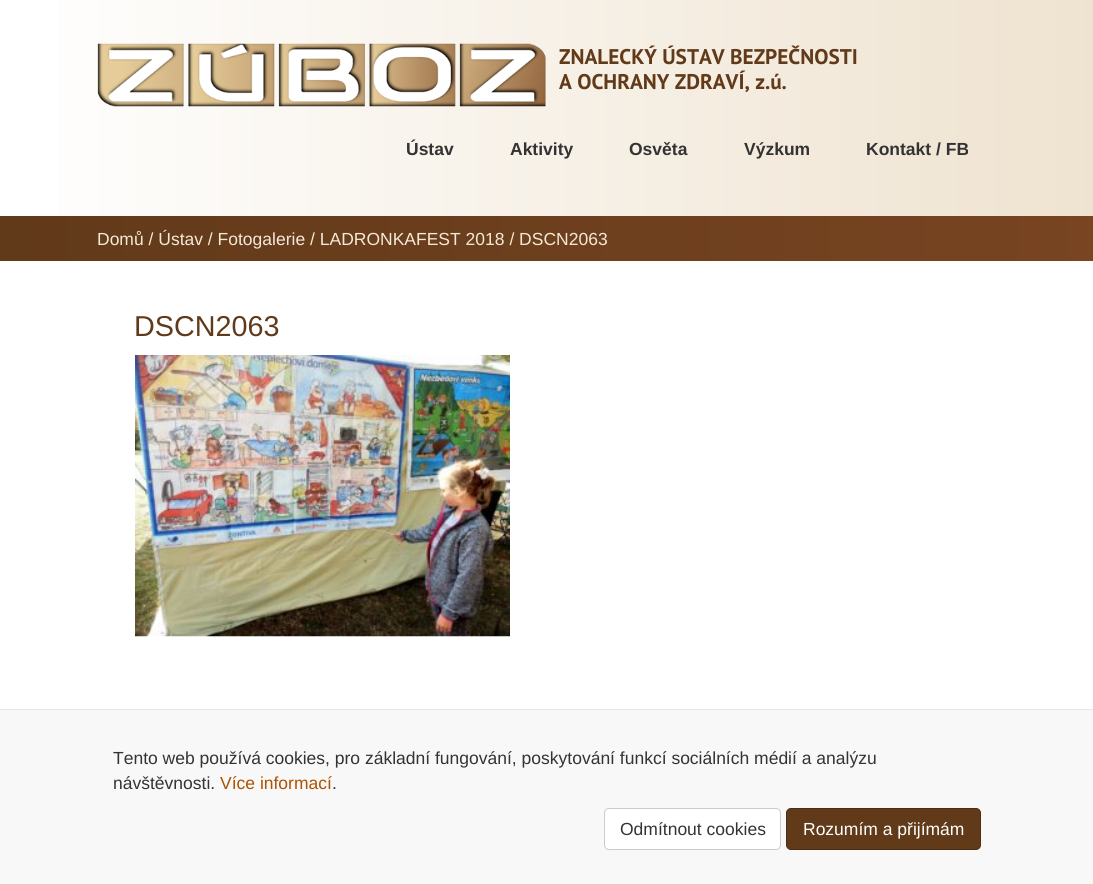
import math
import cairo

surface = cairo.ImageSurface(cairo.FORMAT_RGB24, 1093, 884)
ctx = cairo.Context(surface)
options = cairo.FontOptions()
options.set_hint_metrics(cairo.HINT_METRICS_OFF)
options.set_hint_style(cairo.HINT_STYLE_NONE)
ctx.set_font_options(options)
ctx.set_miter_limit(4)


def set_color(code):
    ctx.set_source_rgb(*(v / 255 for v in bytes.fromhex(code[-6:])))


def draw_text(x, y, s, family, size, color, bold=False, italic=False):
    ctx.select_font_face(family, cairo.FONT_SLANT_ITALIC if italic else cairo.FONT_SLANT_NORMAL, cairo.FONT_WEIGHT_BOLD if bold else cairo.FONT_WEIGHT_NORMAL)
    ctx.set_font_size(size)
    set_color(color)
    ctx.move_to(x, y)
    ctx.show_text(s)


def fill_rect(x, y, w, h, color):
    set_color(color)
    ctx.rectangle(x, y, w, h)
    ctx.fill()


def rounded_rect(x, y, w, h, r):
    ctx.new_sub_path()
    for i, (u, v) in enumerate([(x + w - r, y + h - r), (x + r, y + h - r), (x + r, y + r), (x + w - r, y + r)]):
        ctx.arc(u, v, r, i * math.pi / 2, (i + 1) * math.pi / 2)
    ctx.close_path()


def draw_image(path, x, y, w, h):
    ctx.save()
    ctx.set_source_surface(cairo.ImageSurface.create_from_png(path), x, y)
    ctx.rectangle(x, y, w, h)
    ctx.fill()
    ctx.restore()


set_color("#ffffff")
ctx.paint()
gradient = cairo.LinearGradient(0, 108, 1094, 108)
gradient.add_color_stop_rgba(0, 1, 1, 1, 1)
gradient.add_color_stop_rgba(1, 0.937, 0.89, 0.816, 1)
ctx.set_source(gradient)
ctx.rectangle(58, 0, 1035, 216)
ctx.fill()
draw_image("assets/img1.png", 97, 43, 449, 64)
draw_text(559, 64, "ZNALECKÝ ÚSTAV BEZPEČNOSTI", "PT Sans", 21.25, "#613a1a", bold=True)
draw_text(559, 89, "A OCHRANY ZDRAVÍ, z.ú.", "PT Sans", 21.25, "#613a1a", bold=True)
draw_text(406, 155, "Ústav", "Liberation Sans", 17.5, "#333333", bold=True)
draw_text(510, 155, "Aktivity", "Liberation Sans", 17.5, "#333333", bold=True)
draw_text(629, 155, "Osvěta", "Liberation Sans", 17.5, "#333333", bold=True)
draw_text(744, 155, "Výzkum", "Liberation Sans", 17.5, "#333333", bold=True)
draw_text(866, 155, "Kontakt / FB", "Liberation Sans", 17.5, "#333333", bold=True)
gradient = cairo.LinearGradient(0, 239, 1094, 239)
gradient.add_color_stop_rgba(0, 0.38, 0.227, 0.102, 1)
gradient.add_color_stop_rgba(1, 0.471, 0.267, 0.129, 1)
ctx.set_source(gradient)
ctx.rectangle(0, 216, 1093, 45)
ctx.fill()
draw_text(97, 245, "Domů / Ústav / Fotogalerie / LADRONKAFEST 2018 / DSCN2063", "Liberation Sans", 17.5, "#f4e9d7")
draw_text(134, 336, "DSCN2063", "Liberation Sans", 28.75, "#613a1a")
draw_image("assets/img2.png", 135, 355, 375, 282)
fill_rect(0, 710, 1093, 174, "#f8f8f8")
fill_rect(0, 709, 1093, 1, "#e7e7e7")
draw_text(113, 764, "Tento web používá cookies, pro základní fungování, poskytování funkcí sociálních médií a analýzu", "Liberation Sans", 17.5, "#333333")
draw_text(113, 789, "návštěvnosti.", "Liberation Sans", 17.5, "#333333")
draw_text(220, 789, "Více informací", "Liberation Sans", 17.5, "#ae5100")
draw_text(332, 789, ".", "Liberation Sans", 17.5, "#333333")
set_color("#ffffff")
rounded_rect(604.5, 808.5, 176, 41, 4.5)
ctx.fill_preserve()
set_color("#cccccc")
ctx.set_line_width(1)
ctx.stroke()
draw_text(620, 835, "Odmítnout cookies", "Liberation Sans", 17.5, "#333333")
set_color("#613a1a")
rounded_rect(786.5, 808.5, 194, 41, 4.5)
ctx.fill_preserve()
set_color("#4d2e15")
ctx.stroke()
draw_text(803, 835, "Rozumím a přijímám", "Liberation Sans", 17.5, "#ffffff")
surface.write_to_png("output.png")
